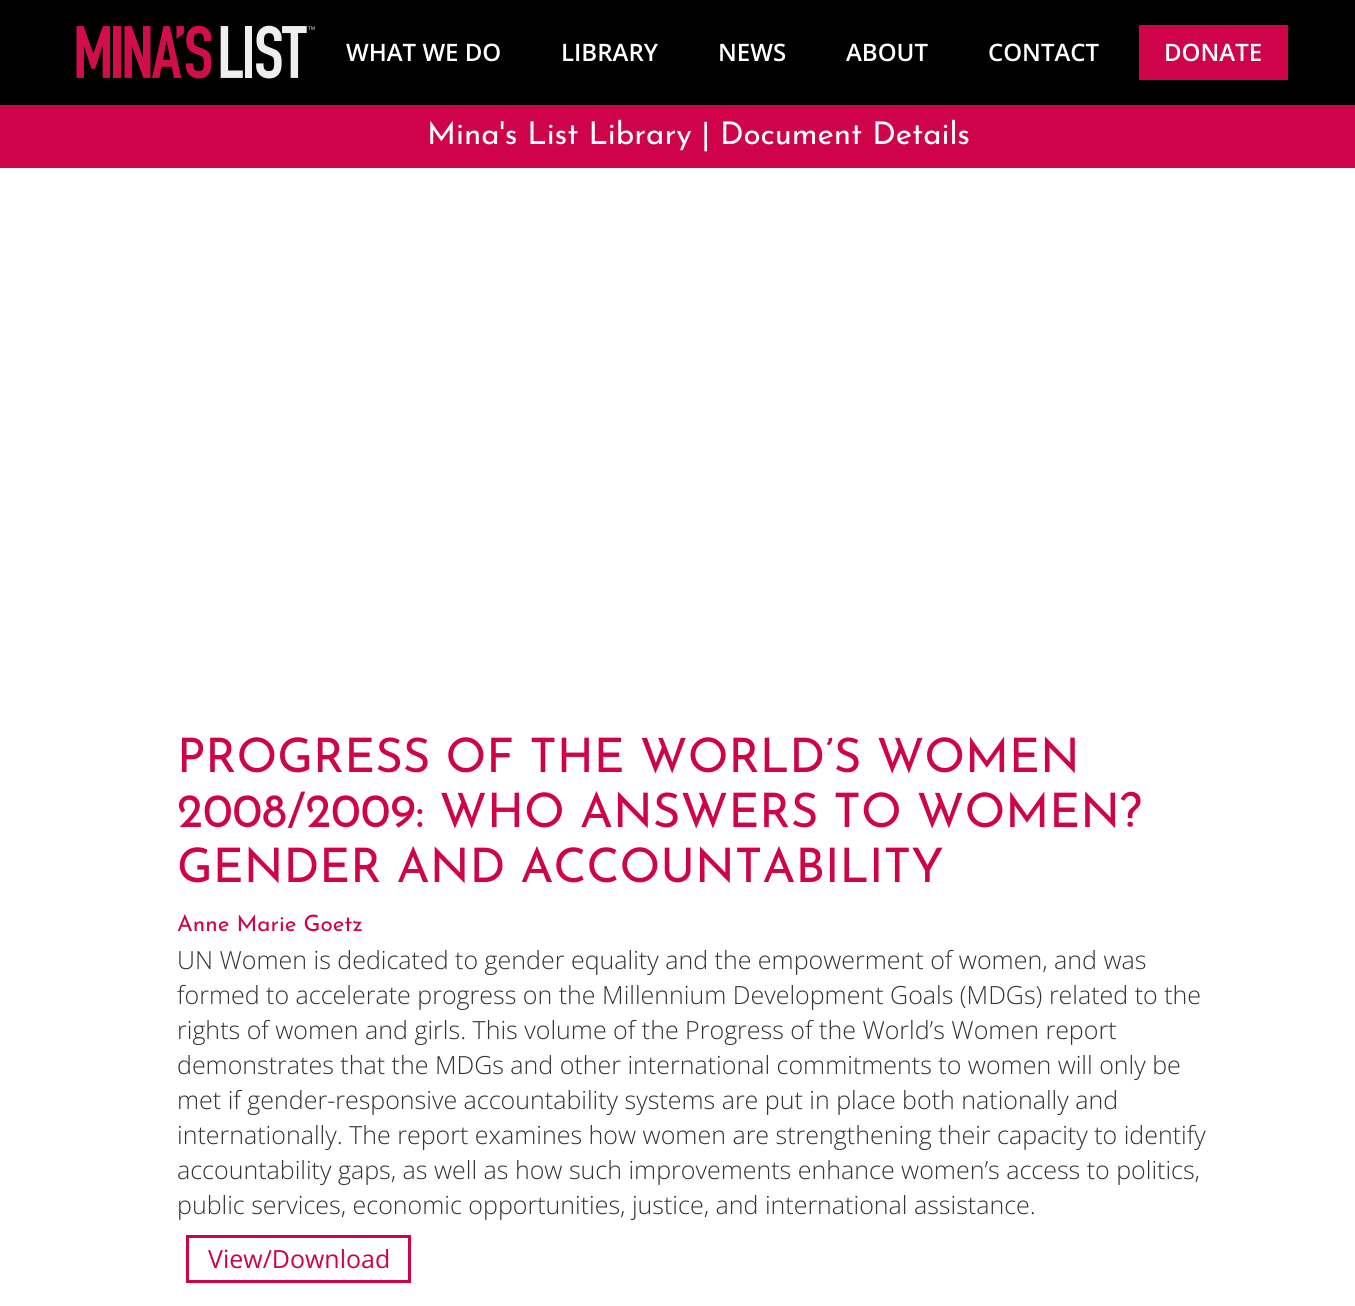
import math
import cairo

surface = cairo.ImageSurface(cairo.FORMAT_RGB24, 1355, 1306)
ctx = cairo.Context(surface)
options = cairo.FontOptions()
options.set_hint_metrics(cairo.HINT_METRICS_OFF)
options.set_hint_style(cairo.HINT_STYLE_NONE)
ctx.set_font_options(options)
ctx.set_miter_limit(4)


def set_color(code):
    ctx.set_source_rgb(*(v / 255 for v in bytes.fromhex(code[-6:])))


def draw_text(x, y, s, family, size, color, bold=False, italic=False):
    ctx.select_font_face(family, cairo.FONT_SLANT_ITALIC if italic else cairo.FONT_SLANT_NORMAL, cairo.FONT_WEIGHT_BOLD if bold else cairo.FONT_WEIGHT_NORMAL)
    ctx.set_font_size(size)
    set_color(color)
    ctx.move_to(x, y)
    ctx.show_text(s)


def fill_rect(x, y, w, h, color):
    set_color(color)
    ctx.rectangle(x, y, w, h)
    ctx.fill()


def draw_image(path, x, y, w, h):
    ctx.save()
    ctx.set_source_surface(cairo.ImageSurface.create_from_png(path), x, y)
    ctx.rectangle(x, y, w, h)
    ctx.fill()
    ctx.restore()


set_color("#ffffff")
ctx.paint()
fill_rect(0, 0, 1355, 105, "#000000")
draw_image("assets/img1.png", 76, 25, 239, 54)
draw_text(346, 61, "WHAT WE DO", "Open Sans SemiBold", 24, "#ffffff")
draw_text(561, 61, "LIBRARY", "Open Sans SemiBold", 24, "#ffffff")
draw_text(718, 61, "NEWS", "Open Sans SemiBold", 24, "#ffffff")
draw_text(846, 61, "ABOUT", "Open Sans SemiBold", 24, "#ffffff")
draw_text(988, 61, "CONTACT", "Open Sans SemiBold", 24, "#ffffff")
fill_rect(1139, 25, 149, 55, "#cf0349")
draw_text(1164, 61, "DONATE", "Open Sans SemiBold", 24, "#ffffff")
fill_rect(0, 105, 1355, 63, "#cf0349")
draw_text(427, 144, "Mina's List Library | Document Details", "Josefin Sans", 31.25, "#ffffff")
draw_text(177, 772, "PROGRESS OF THE WORLD’S WOMEN", "Josefin Sans", 47.5, "#cf0349")
draw_text(177, 827, "2008/2009: WHO ANSWERS TO WOMEN?", "Josefin Sans", 47.5, "#cf0349")
draw_text(177, 882, "GENDER AND ACCOUNTABILITY", "Josefin Sans", 47.5, "#cf0349")
draw_text(177, 931, "Anne Marie Goetz", "Josefin Sans", 22.5, "#cf0349")
draw_text(177, 969, "UN Women is dedicated to gender equality and the empowerment of women, and was", "Open Sans Light", 25, "#333333")
draw_text(177, 1004, "formed to accelerate progress on the Millennium Development Goals (MDGs) related to the", "Open Sans Light", 25, "#333333")
draw_text(177, 1039, "rights of women and girls. This volume of the Progress of the World’s Women report", "Open Sans Light", 25, "#333333")
draw_text(177, 1074, "demonstrates that the MDGs and other international commitments to women will only be", "Open Sans Light", 25, "#333333")
draw_text(177, 1109, "met if gender-responsive accountability systems are put in place both nationally and", "Open Sans Light", 25, "#333333")
draw_text(177, 1144, "internationally. The report examines how women are strengthening their capacity to identify", "Open Sans Light", 25, "#333333")
draw_text(177, 1179, "accountability gaps, as well as how such improvements enhance women’s access to politics,", "Open Sans Light", 25, "#333333")
draw_text(177, 1214, "public services, economic opportunities, justice, and international assistance.", "Open Sans Light", 25, "#333333")
ctx.rectangle(187.5, 1236.5, 222, 45)
set_color("#cf0349")
ctx.set_line_width(3)
ctx.stroke()
draw_text(208, 1268, "View/Download", "Open Sans", 25, "#cf0349")
surface.write_to_png("output.png")
